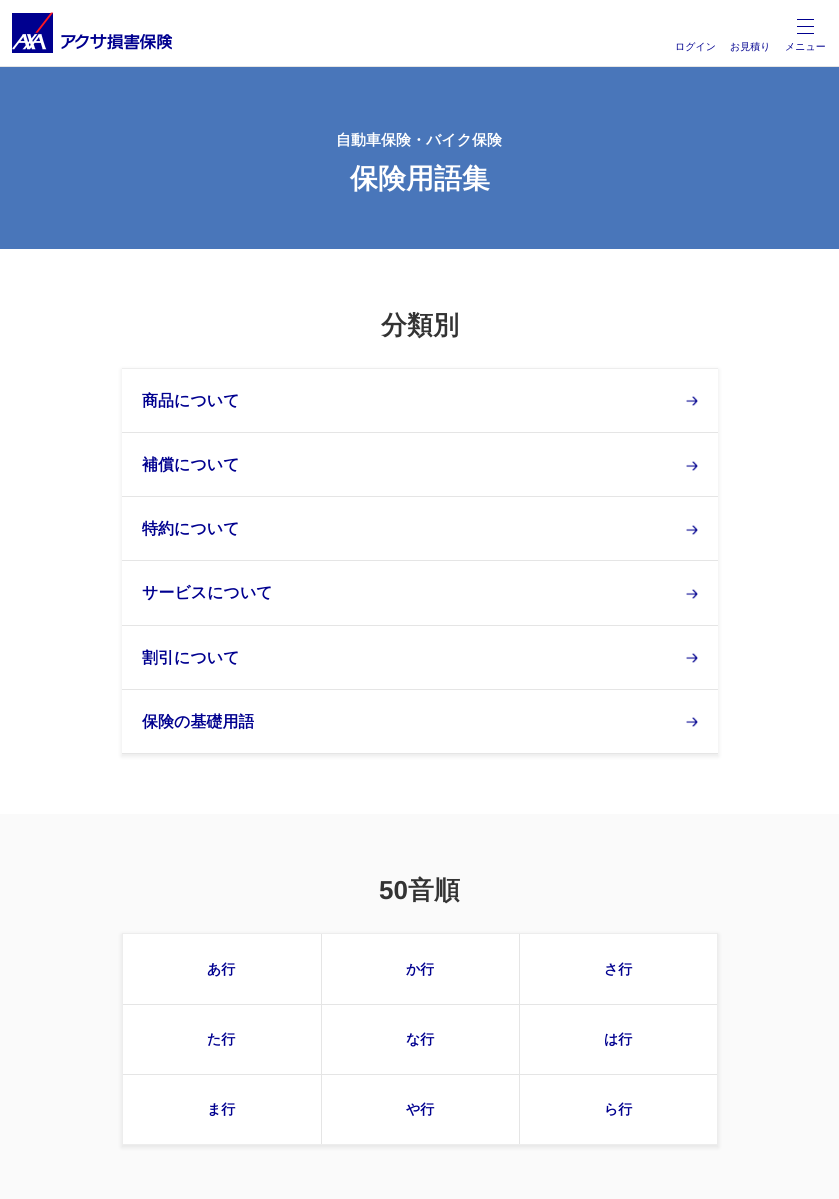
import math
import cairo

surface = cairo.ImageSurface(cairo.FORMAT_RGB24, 839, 1199)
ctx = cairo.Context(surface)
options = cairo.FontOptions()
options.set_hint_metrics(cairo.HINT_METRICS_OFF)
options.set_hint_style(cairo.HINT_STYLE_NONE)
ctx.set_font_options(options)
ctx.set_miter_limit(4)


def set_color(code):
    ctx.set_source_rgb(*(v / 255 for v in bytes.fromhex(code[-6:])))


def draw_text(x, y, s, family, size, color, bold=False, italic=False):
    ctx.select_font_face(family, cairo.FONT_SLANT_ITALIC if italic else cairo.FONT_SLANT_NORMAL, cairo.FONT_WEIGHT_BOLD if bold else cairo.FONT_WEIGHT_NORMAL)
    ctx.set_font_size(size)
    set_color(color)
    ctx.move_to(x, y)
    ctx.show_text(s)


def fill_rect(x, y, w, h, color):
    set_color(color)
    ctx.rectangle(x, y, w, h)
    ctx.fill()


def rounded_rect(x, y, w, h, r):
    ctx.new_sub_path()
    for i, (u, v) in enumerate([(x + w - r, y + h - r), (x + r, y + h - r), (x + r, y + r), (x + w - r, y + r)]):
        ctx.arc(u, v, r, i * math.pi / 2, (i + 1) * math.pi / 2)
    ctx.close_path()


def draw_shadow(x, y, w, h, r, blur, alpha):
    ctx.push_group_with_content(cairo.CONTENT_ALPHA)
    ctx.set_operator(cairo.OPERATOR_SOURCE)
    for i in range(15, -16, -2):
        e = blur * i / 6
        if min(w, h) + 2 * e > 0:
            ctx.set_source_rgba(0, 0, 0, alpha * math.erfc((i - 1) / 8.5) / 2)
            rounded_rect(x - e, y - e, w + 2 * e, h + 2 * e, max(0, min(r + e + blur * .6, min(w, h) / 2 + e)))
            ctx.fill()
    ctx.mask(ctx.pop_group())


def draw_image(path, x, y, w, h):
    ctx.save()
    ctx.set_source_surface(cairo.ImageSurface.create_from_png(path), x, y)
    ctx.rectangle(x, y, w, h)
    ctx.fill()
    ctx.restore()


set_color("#ffffff")
ctx.paint()
fill_rect(0, 66, 839, 1, "#e5e5e5")
draw_image("assets/img1.png", 12, 12, 161, 41)
draw_text(675, 50, "ログイン", "WenQuanYi Zen Hei Medium", 10, "#00008f")
draw_text(730, 50, "お見積り", "WenQuanYi Zen Hei Medium", 10, "#00008f")
fill_rect(797, 19, 17, 1, "#00008f")
fill_rect(797, 26, 17, 1, "#00008f")
fill_rect(797, 33, 17, 1, "#00008f")
draw_text(785, 50, "メニュー", "WenQuanYi Zen Hei Medium", 10, "#00008f")
fill_rect(0, 67, 839, 182, "#4976ba")
draw_text(336, 145, "自動車保険・バイク保険", "WenQuanYi Zen Hei", 15, "#ffffff", bold=True)
draw_text(350, 188, "保険用語集", "WenQuanYi Zen Hei", 28, "#ffffff", bold=True)
draw_text(381, 334, "分類別", "WenQuanYi Zen Hei", 26, "#333333", bold=True)
ctx.save()
ctx.set_fill_rule(cairo.FILL_RULE_EVEN_ODD)
ctx.new_path()
ctx.move_to(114, 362)
ctx.line_to(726, 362)
ctx.line_to(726, 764)
ctx.line_to(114, 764)
ctx.close_path()
ctx.move_to(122, 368)
ctx.line_to(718, 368)
ctx.line_to(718, 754)
ctx.line_to(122, 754)
ctx.close_path()
ctx.clip()
set_color("#000000")
draw_shadow(121, 369, 598, 388, 0, 2, 0.07)
ctx.restore()
fill_rect(122, 368, 596, 1, "#ededed")
fill_rect(122, 432, 596, 1, "#e5e5e5")
draw_text(142, 406, "商品について", "WenQuanYi Zen Hei", 16, "#00008f", bold=True)
draw_image("assets/img2.png", 686, 396, 12, 10)
fill_rect(122, 496, 596, 1, "#e5e5e5")
draw_text(142, 470, "補償について", "WenQuanYi Zen Hei", 16, "#00008f", bold=True)
draw_image("assets/img2.png", 686, 461, 12, 10)
fill_rect(122, 560, 596, 1, "#e5e5e5")
draw_text(142, 534, "特約について", "WenQuanYi Zen Hei", 16, "#00008f", bold=True)
draw_image("assets/img2.png", 686, 525, 12, 10)
fill_rect(122, 625, 596, 1, "#e5e5e5")
draw_text(142, 598, "サービスについて", "WenQuanYi Zen Hei", 16, "#00008f", bold=True)
draw_image("assets/img2.png", 686, 589, 12, 10)
fill_rect(122, 689, 596, 1, "#e5e5e5")
draw_text(142, 663, "割引について", "WenQuanYi Zen Hei", 16, "#00008f", bold=True)
draw_image("assets/img2.png", 686, 653, 12, 10)
fill_rect(122, 753, 596, 1, "#e5e5e5")
draw_text(142, 727, "保険の基礎用語", "WenQuanYi Zen Hei", 16, "#00008f", bold=True)
draw_image("assets/img2.png", 686, 717, 12, 10)
fill_rect(0, 814, 839, 385, "#fafafa")
draw_text(379, 899, "50", "Liberation Sans", 26, "#333333", bold=True)
draw_text(408, 899, "音順", "WenQuanYi Zen Hei", 26, "#333333", bold=True)
set_color("#000000")
draw_shadow(121, 934, 598, 214, 0, 2, 0.07)
set_color("#ffffff")
ctx.rectangle(122.5, 933.5, 595, 211)
ctx.fill_preserve()
set_color("#ededed")
ctx.set_line_width(1)
ctx.stroke()
draw_text(207, 974, "あ行", "WenQuanYi Zen Hei", 14, "#00008f", bold=True)
fill_rect(321, 934, 1, 70, "#e5e5e5")
draw_text(406, 974, "か行", "WenQuanYi Zen Hei", 14, "#00008f", bold=True)
fill_rect(519, 934, 1, 70, "#e5e5e5")
draw_text(604, 974, "さ行", "WenQuanYi Zen Hei", 14, "#00008f", bold=True)
fill_rect(123, 1004, 594, 1, "#e5e5e5")
draw_text(207, 1044, "た行", "WenQuanYi Zen Hei", 14, "#00008f", bold=True)
fill_rect(321, 1004, 1, 70, "#e5e5e5")
draw_text(406, 1044, "な行", "WenQuanYi Zen Hei", 14, "#00008f", bold=True)
fill_rect(519, 1004, 1, 70, "#e5e5e5")
draw_text(604, 1044, "は行", "WenQuanYi Zen Hei", 14, "#00008f", bold=True)
fill_rect(123, 1074, 594, 1, "#e5e5e5")
draw_text(207, 1114, "ま行", "WenQuanYi Zen Hei", 14, "#00008f", bold=True)
fill_rect(321, 1074, 1, 70, "#e5e5e5")
draw_text(406, 1114, "や行", "WenQuanYi Zen Hei", 14, "#00008f", bold=True)
fill_rect(519, 1074, 1, 70, "#e5e5e5")
draw_text(604, 1114, "ら行", "WenQuanYi Zen Hei", 14, "#00008f", bold=True)
surface.write_to_png("output.png")
